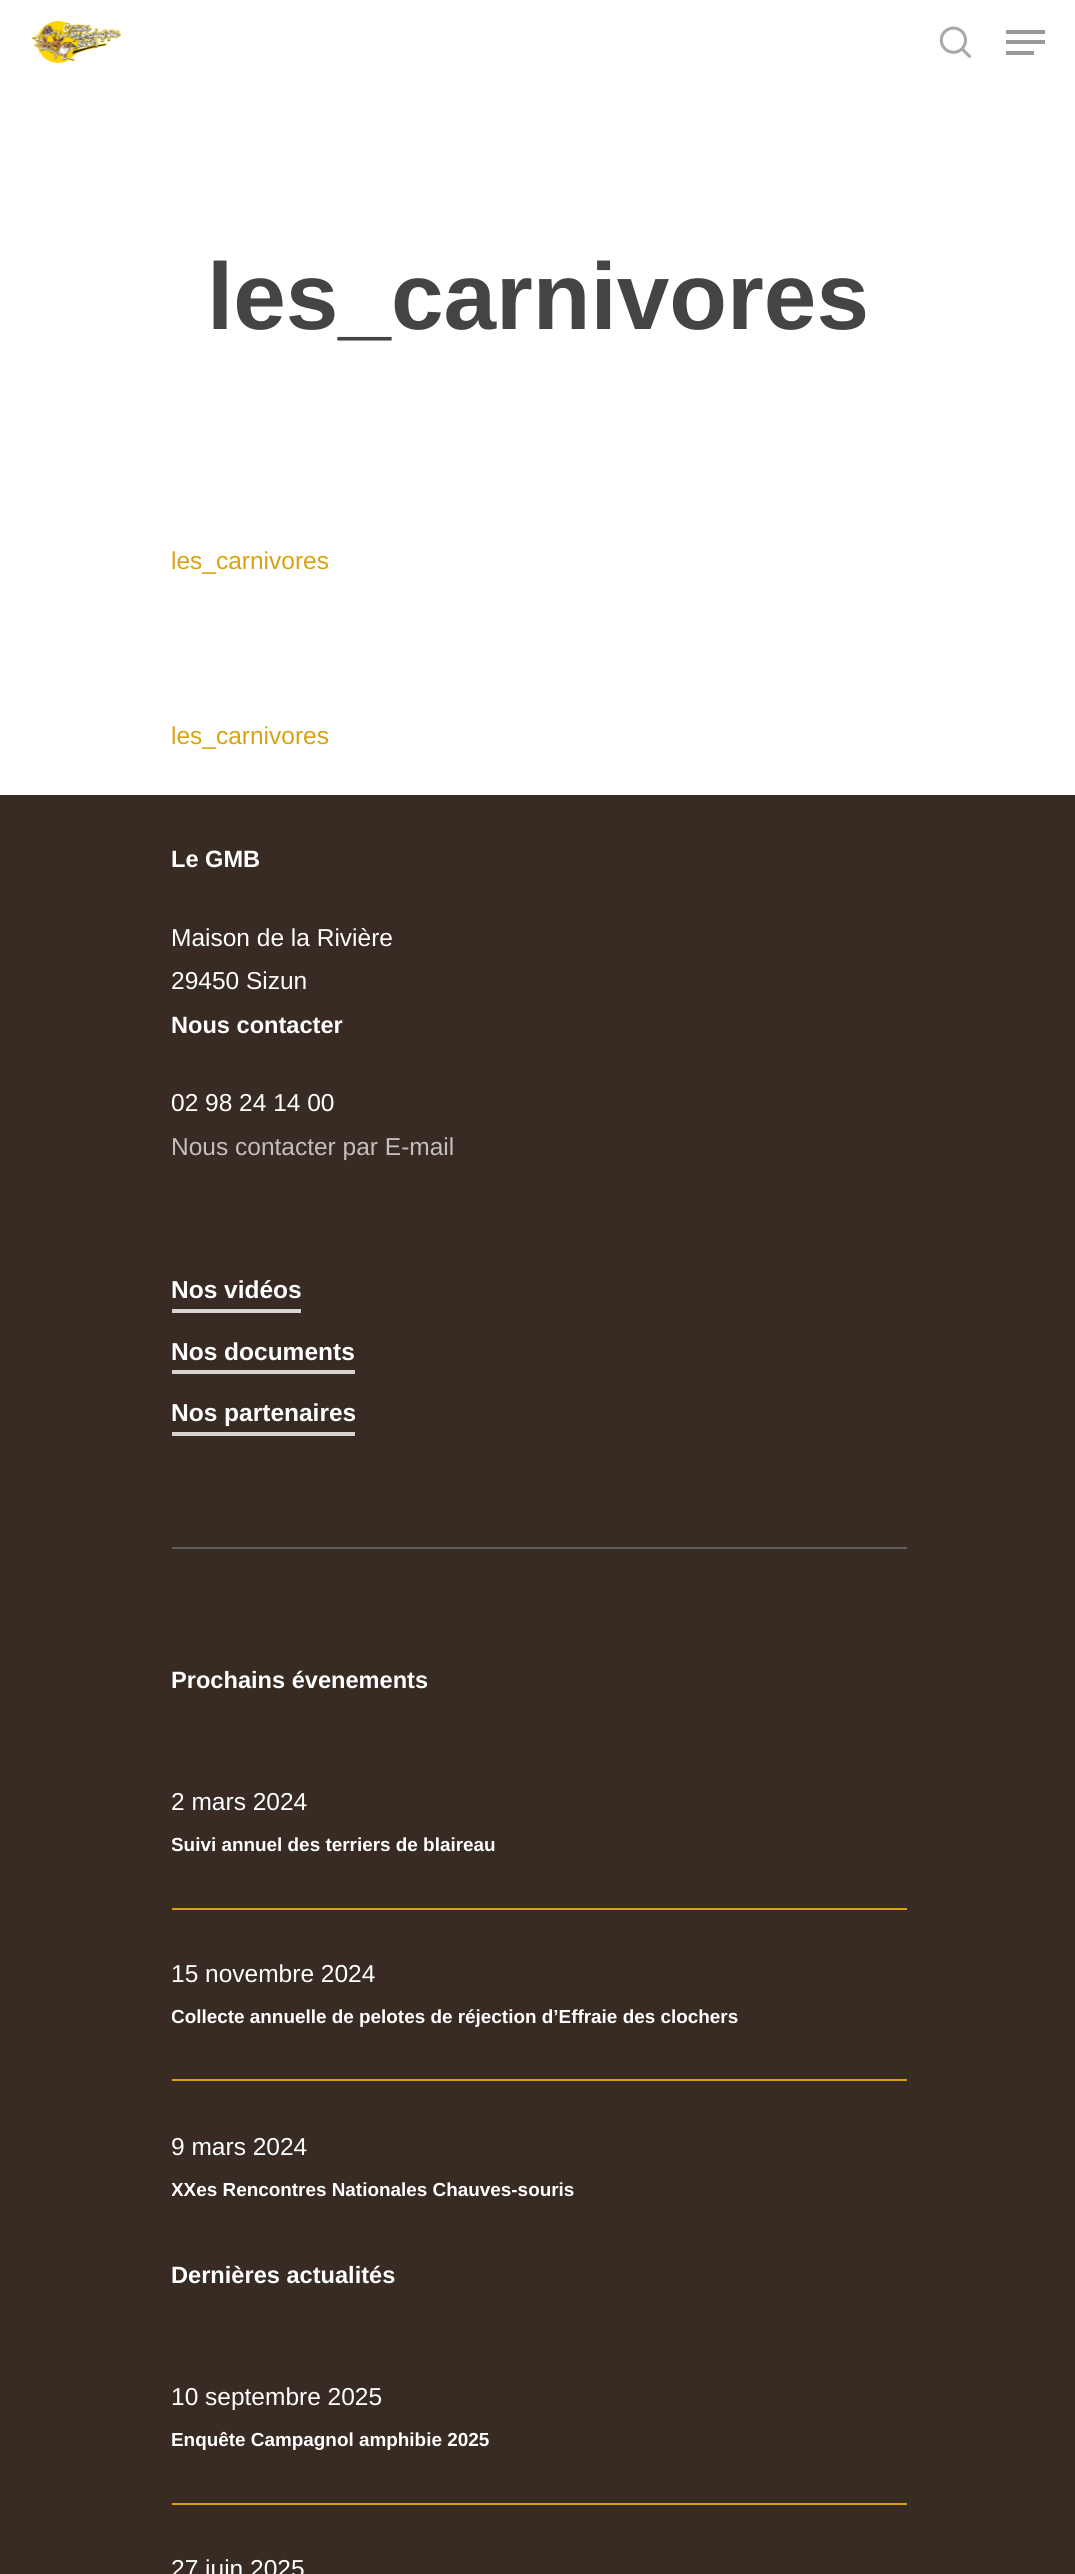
import math
import cairo

surface = cairo.ImageSurface(cairo.FORMAT_RGB24, 1075, 2574)
ctx = cairo.Context(surface)
options = cairo.FontOptions()
options.set_hint_metrics(cairo.HINT_METRICS_OFF)
options.set_hint_style(cairo.HINT_STYLE_NONE)
ctx.set_font_options(options)
ctx.set_miter_limit(4)


def set_color(code):
    ctx.set_source_rgb(*(v / 255 for v in bytes.fromhex(code[-6:])))


def draw_text(x, y, s, family, size, color, bold=False, italic=False):
    ctx.select_font_face(family, cairo.FONT_SLANT_ITALIC if italic else cairo.FONT_SLANT_NORMAL, cairo.FONT_WEIGHT_BOLD if bold else cairo.FONT_WEIGHT_NORMAL)
    ctx.set_font_size(size)
    set_color(color)
    ctx.move_to(x, y)
    ctx.show_text(s)


def fill_rect(x, y, w, h, color):
    set_color(color)
    ctx.rectangle(x, y, w, h)
    ctx.fill()


def draw_image(path, x, y, w, h):
    ctx.save()
    ctx.set_source_surface(cairo.ImageSurface.create_from_png(path), x, y)
    ctx.rectangle(x, y, w, h)
    ctx.fill()
    ctx.restore()


set_color("#ffffff")
ctx.paint()
draw_image("assets/img1.png", 31, 21, 90, 42)
draw_image("assets/img2.png", 939, 26, 33, 32)
fill_rect(1006, 30, 39, 4, "#999999")
fill_rect(1006, 51, 28, 4, "#999999")
fill_rect(1006, 40, 39, 4, "#999999")
draw_text(207, 329, "les_carnivores", "Liberation Sans", 94.5, "#444444", bold=True)
draw_text(171, 569, "les_carnivores", "Liberation Sans", 24.5, "#d8a212")
draw_text(171, 744, "les_carnivores", "Liberation Sans", 24.5, "#d8a212")
fill_rect(0, 795, 1075, 1779, "#382b24")
draw_text(171, 867, "Le GMB", "Liberation Sans", 23.6, "#ffffff", bold=True)
draw_text(171, 946, "Maison de la Rivière", "Liberation Sans", 24.5, "#ffffff")
draw_text(171, 989, "29450 Sizun", "Liberation Sans", 24.5, "#ffffff")
draw_text(171, 1033, "Nous contacter", "Liberation Sans", 23.6, "#ffffff", bold=True)
draw_text(171, 1111, "02 98 24 14 00", "Liberation Sans", 24.5, "#ffffff")
draw_text(171, 1155, "Nous contacter par E-mail", "Liberation Sans", 24.5, "#c3bfbd")
draw_text(171, 1298, "Nos vidéos", "Liberation Sans", 24.5, "#ffffff", bold=True)
fill_rect(172, 1309, 129, 4, "#d7d5d3")
draw_text(171, 1360, "Nos documents", "Liberation Sans", 24.5, "#ffffff", bold=True)
fill_rect(172, 1370, 183, 4, "#d7d5d3")
draw_text(171, 1421, "Nos partenaires", "Liberation Sans", 24.5, "#ffffff", bold=True)
fill_rect(172, 1432, 183, 4, "#d7d5d3")
fill_rect(172, 1547, 735, 2, "#5e5e5e")
draw_text(171, 1688, "Prochains évenements", "Liberation Sans", 23.6, "#ffffff", bold=True)
draw_text(171, 1810, "2 mars 2024", "Liberation Sans", 24.5, "#ffffff")
ctx.save()
ctx.rectangle(172, 1736, 735, 173)
ctx.clip()
draw_text(171, 1851, "Suivi annuel des terriers de blaireau", "Liberation Sans", 18.9, "#ffffff", bold=True)
ctx.restore()
fill_rect(172, 1908, 735, 2, "#d8a212")
draw_text(171, 1982, "15 novembre 2024", "Liberation Sans", 24.5, "#ffffff")
ctx.save()
ctx.rectangle(172, 1909, 735, 172)
ctx.clip()
draw_text(171, 2023, "Collecte annuelle de pelotes de réjection d’Effraie des clochers", "Liberation Sans", 18.9, "#ffffff", bold=True)
ctx.restore()
fill_rect(172, 2079, 735, 2, "#d8a212")
ctx.save()
ctx.rectangle(172, 2081, 735, 173)
ctx.clip()
draw_text(171, 2155, "9 mars 2024", "Liberation Sans", 24.5, "#ffffff")
draw_text(171, 2196, "XXes Rencontres Nationales Chauves-souris", "Liberation Sans", 18.9, "#ffffff", bold=True)
ctx.restore()
draw_text(171, 2283, "Dernières actualités", "Liberation Sans", 23.6, "#ffffff", bold=True)
draw_text(171, 2405, "10 septembre 2025", "Liberation Sans", 24.5, "#ffffff")
ctx.save()
ctx.rectangle(172, 2331, 735, 173)
ctx.clip()
draw_text(171, 2446, "Enquête Campagnol amphibie 2025", "Liberation Sans", 18.9, "#ffffff", bold=True)
ctx.restore()
fill_rect(172, 2503, 735, 2, "#d8a212")
draw_text(171, 2577, "27 juin 2025", "Liberation Sans", 24.5, "#ffffff")
surface.write_to_png("output.png")
